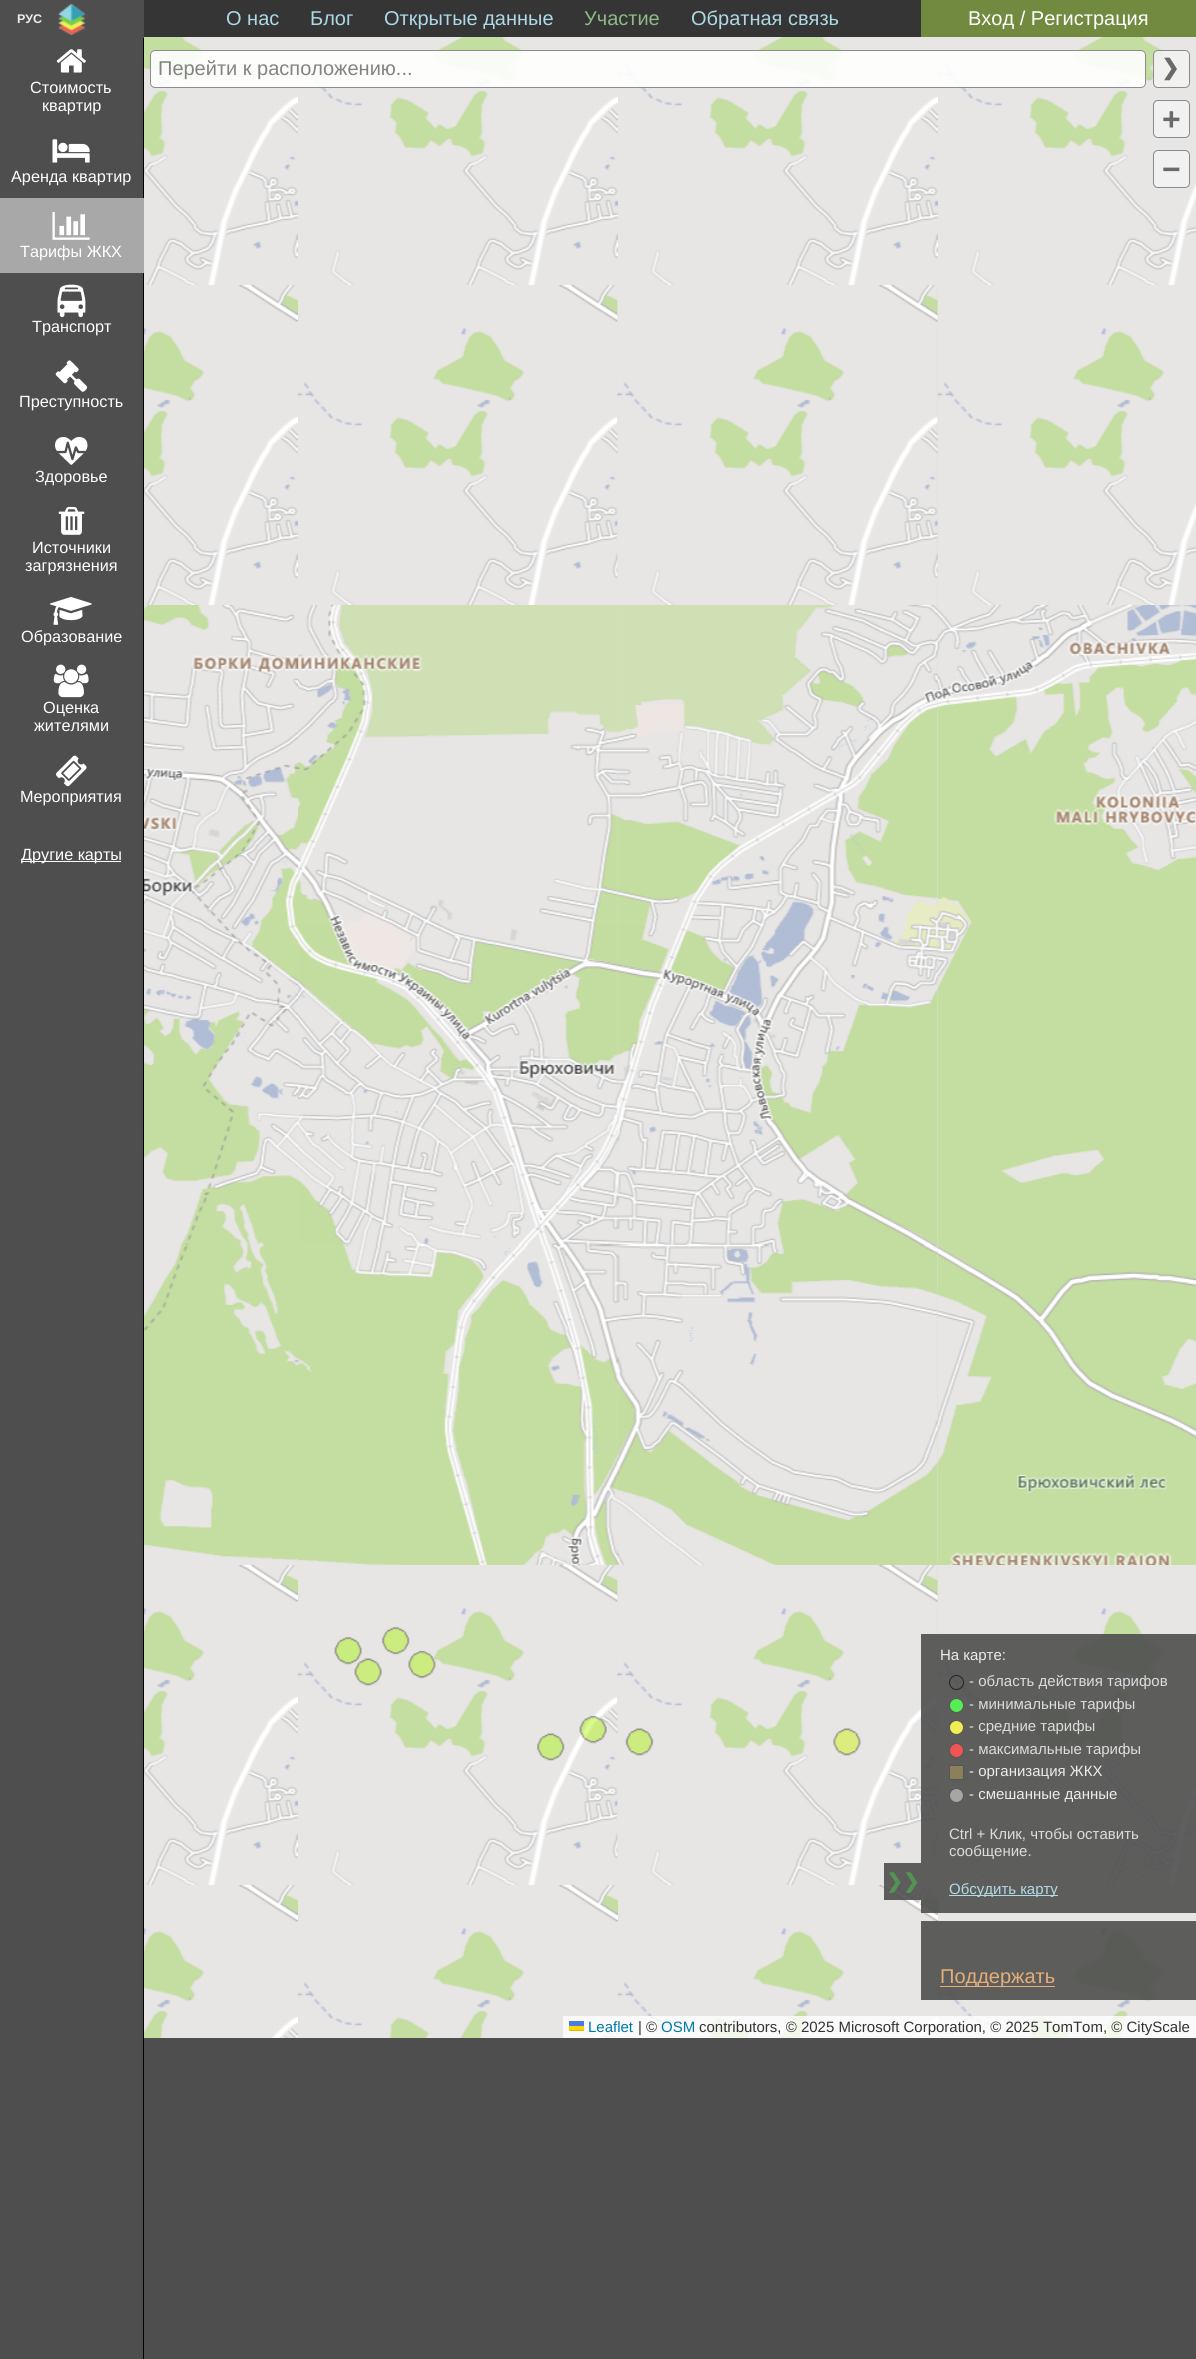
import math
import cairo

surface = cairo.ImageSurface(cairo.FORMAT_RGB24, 1196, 2359)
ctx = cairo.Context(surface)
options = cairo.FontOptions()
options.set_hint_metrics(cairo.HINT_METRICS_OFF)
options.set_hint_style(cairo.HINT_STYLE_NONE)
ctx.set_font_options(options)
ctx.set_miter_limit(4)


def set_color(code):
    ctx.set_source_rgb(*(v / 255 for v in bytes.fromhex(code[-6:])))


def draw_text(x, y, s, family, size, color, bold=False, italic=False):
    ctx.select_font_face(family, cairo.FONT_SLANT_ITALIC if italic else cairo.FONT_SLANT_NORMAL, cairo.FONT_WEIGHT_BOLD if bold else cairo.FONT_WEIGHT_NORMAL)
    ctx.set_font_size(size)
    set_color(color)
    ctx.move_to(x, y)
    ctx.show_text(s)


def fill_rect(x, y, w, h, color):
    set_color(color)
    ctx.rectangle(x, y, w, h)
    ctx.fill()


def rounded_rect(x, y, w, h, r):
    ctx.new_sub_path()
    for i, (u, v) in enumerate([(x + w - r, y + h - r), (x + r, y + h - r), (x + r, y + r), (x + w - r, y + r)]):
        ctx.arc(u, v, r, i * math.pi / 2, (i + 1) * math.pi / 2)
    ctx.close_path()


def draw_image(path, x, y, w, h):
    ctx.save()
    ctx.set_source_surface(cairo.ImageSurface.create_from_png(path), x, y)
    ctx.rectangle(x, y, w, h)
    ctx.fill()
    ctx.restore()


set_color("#4e4e4e")
ctx.paint()
fill_rect(144, 0, 777, 37, "#353535")
draw_text(17, 23, "РУС", "Liberation Sans", 12.5, "#ececec", bold=True)
draw_image("assets/img1.png", 58, 3, 28, 32)
draw_text(226, 25, "О нас", "Liberation Sans", 20, "#add8e6")
draw_text(310, 25, "Блог", "Liberation Sans", 20, "#add8e6")
draw_text(384, 25, "Открытые данные", "Liberation Sans", 20, "#add8e6")
draw_text(584, 25, "Участие", "Liberation Sans", 20, "#8dba85")
draw_text(691, 25, "Обратная связь", "Liberation Sans", 20, "#add8e6")
fill_rect(921, 0, 275, 37, "#718a40")
draw_text(968, 25, "Вход / Регистрация", "Liberation Sans", 20, "#ffffff")
draw_image("assets/img2.png", 56, 49, 30, 24)
draw_text(30, 93, "Стоимость", "Liberation Sans", 16.25, "#ffffff")
draw_text(42, 111, "квартир", "Liberation Sans", 16.25, "#ffffff")
draw_image("assets/img3.png", 52, 139, 38, 24)
draw_text(11, 182, "Аренда квартир", "Liberation Sans", 16.25, "#ffffff")
fill_rect(143, 38, 1, 2321, "#000000")
fill_rect(0, 198, 144, 75, "#a8a8a8")
draw_image("assets/img4.png", 52, 212, 38, 28)
draw_text(20, 257, "Тарифы ЖКХ", "Liberation Sans", 16.25, "#ffffff")
draw_image("assets/img5.png", 57, 284, 29, 34)
draw_text(32, 332, "Транспорт", "Liberation Sans", 16.25, "#ffffff")
draw_image("assets/img6.png", 55, 360, 33, 32)
draw_text(19, 407, "Преступность", "Liberation Sans", 16.25, "#ffffff")
draw_image("assets/img7.png", 55, 437, 33, 28)
draw_text(35, 482, "Здоровье", "Liberation Sans", 16.25, "#ffffff")
draw_image("assets/img8.png", 58, 506, 27, 29)
draw_text(32, 553, "Источники", "Liberation Sans", 16.25, "#ffffff")
draw_text(25, 571, "загрязнения", "Liberation Sans", 16.25, "#ffffff")
draw_image("assets/img9.png", 50, 597, 42, 28)
draw_text(21, 642, "Образование", "Liberation Sans", 16.25, "#ffffff")
draw_image("assets/img10.png", 53, 664, 36, 34)
draw_text(43, 713, "Оценка", "Liberation Sans", 16.25, "#ffffff")
draw_text(34, 731, "жителями", "Liberation Sans", 16.25, "#ffffff")
draw_image("assets/img11.png", 56, 755, 31, 32)
draw_text(20, 802, "Мероприятия", "Liberation Sans", 16.25, "#ffffff")
fill_rect(21, 861, 100, 1, "#ffffff")
draw_text(21, 860, "Другие карты", "Liberation Sans", 16.25, "#ffffff")
draw_image("assets/img12.png", 144, 37, 154, 248)
draw_image("assets/img13.png", 298, 37, 320, 248)
draw_image("assets/img13.png", 618, 37, 320, 248)
draw_image("assets/img14.png", 938, 37, 258, 248)
ctx.set_source_rgba(1, 1, 1, 0.9)
rounded_rect(150, 50, 996, 38, 5)
ctx.fill()
rounded_rect(150.5, 50.5, 995, 37, 4.5)
ctx.set_source_rgba(0.502, 0.502, 0.502, 0.9)
ctx.set_line_width(1)
ctx.stroke()
draw_text(158, 75, "Перейти к расположению...", "Liberation Sans", 20, "#838382")
ctx.set_source_rgba(0.949, 0.949, 0.949, 0.9)
rounded_rect(1153, 50, 37, 38, 5)
ctx.fill()
rounded_rect(1153.5, 50.5, 36, 37, 4.5)
ctx.set_source_rgba(0.502, 0.502, 0.502, 0.9)
ctx.stroke()
draw_text(1161, 75, "❯", "DejaVu Sans", 22, "#6a6a6a", bold=True)
fill_rect(617, 285, 321, 1600, "#dddddd")
draw_image("assets/img15.png", 144, 285, 154, 320)
draw_image("assets/img16.png", 298, 285, 320, 320)
draw_image("assets/img17.png", 617, 285, 321, 320)
draw_image("assets/img18.png", 938, 285, 258, 320)
draw_image("assets/img19.png", 144, 605, 154, 320)
draw_image("assets/img20.png", 298, 605, 320, 320)
draw_image("assets/img21.png", 617, 605, 321, 320)
draw_image("assets/img22.png", 938, 605, 258, 320)
draw_image("assets/img23.png", 144, 925, 154, 320)
draw_image("assets/img24.png", 298, 925, 320, 320)
draw_image("assets/img25.png", 617, 925, 321, 320)
draw_image("assets/img26.png", 938, 925, 258, 320)
draw_image("assets/img27.png", 144, 1245, 154, 320)
draw_image("assets/img28.png", 298, 1245, 320, 320)
draw_image("assets/img29.png", 617, 1245, 321, 320)
draw_image("assets/img30.png", 938, 1245, 258, 320)
draw_image("assets/img15.png", 144, 1565, 154, 320)
draw_image("assets/img16.png", 298, 1565, 320, 320)
draw_image("assets/img17.png", 617, 1565, 321, 320)
draw_image("assets/img18.png", 938, 1565, 258, 320)
draw_image("assets/img31.png", 144, 1885, 154, 153)
draw_image("assets/img32.png", 298, 1885, 320, 153)
draw_image("assets/img32.png", 618, 1885, 320, 153)
draw_image("assets/img33.png", 938, 1885, 258, 153)
draw_image("assets/img34.png", 334, 1627, 273, 134)
draw_image("assets/img35.png", 625, 1728, 236, 28)
set_color("#f1f1f1")
rounded_rect(1153.5, 100.5, 36, 37, 4.5)
ctx.fill_preserve()
set_color("#8a8a8a")
ctx.stroke()
draw_text(1162, 130, "+", "Liberation Sans", 32, "#6a6a6a", bold=True)
set_color("#f1f1f1")
rounded_rect(1153.5, 150.5, 36, 37, 4.5)
ctx.fill_preserve()
set_color("#8a8a8a")
ctx.stroke()
draw_text(1162, 180, "−", "Liberation Sans", 32, "#6a6a6a", bold=True)
ctx.set_source_rgba(1, 1, 1, 0.8)
ctx.rectangle(563, 2016, 633, 22)
ctx.fill()
draw_text(588, 2032, "Leaflet", "Liberation Sans", 15, "#0078a8")
fill_rect(569, 2021, 15, 5, "#4c7be1")
fill_rect(569, 2026, 15, 4, "#ffd500")
fill_rect(569, 2030, 15, 1, "#e0bc00")
draw_text(638, 2032, "| ©", "Liberation Sans", 15, "#333333")
draw_text(661, 2032, "OSM", "Liberation Sans", 15, "#0078a8")
draw_text(699, 2032, "contributors, © 2025 Microsoft Corporation, © 2025 TomTom, © CityScale", "Liberation Sans", 15, "#333333")
ctx.set_source_rgba(0.306, 0.306, 0.306, 0.9)
ctx.rectangle(884, 1863, 37, 37)
ctx.fill()
draw_text(886, 1888, "❯❯", "DejaVu Sans", 20, "#539353", bold=True)
ctx.set_source_rgba(0.306, 0.306, 0.306, 0.9)
ctx.rectangle(921, 1634, 275, 279)
ctx.fill()
draw_text(940, 1660, "На карте:", "Liberation Sans", 15, "#ececec")
ctx.new_path()
ctx.arc(956.5, 1682.5, 7, 0, 2 * math.pi)
set_color("#222222")
ctx.stroke()
draw_text(969, 1686, "- область действия тарифов", "Liberation Sans", 15, "#dcdcdc")
set_color("#55ee55")
ctx.new_path()
ctx.arc(956.5, 1705.5, 7, 0, 2 * math.pi)
ctx.fill_preserve()
set_color("#555555")
ctx.stroke()
draw_text(969, 1709, "- минимальные тарифы", "Liberation Sans", 15, "#dcdcdc")
set_color("#efee55")
ctx.new_path()
ctx.arc(956.5, 1727.5, 7, 0, 2 * math.pi)
ctx.fill_preserve()
set_color("#555555")
ctx.stroke()
draw_text(969, 1731, "- средние тарифы", "Liberation Sans", 15, "#dcdcdc")
set_color("#ef5555")
ctx.new_path()
ctx.arc(956.5, 1750.5, 7, 0, 2 * math.pi)
ctx.fill_preserve()
set_color("#555555")
ctx.stroke()
draw_text(969, 1754, "- максимальные тарифы", "Liberation Sans", 15, "#dcdcdc")
set_color("#8c7f5b")
ctx.rectangle(949.5, 1765.5, 14, 14)
ctx.fill_preserve()
set_color("#555555")
ctx.stroke()
draw_text(969, 1776, "- организация ЖКХ", "Liberation Sans", 15, "#ececec")
set_color("#a7a6a6")
ctx.new_path()
ctx.arc(956.5, 1795.5, 7, 0, 2 * math.pi)
ctx.fill_preserve()
set_color("#555555")
ctx.stroke()
draw_text(969, 1799, "- смешанные данные", "Liberation Sans", 15, "#ececec")
draw_text(949, 1839, "Ctrl + Клик, чтобы оставить", "Liberation Sans", 15, "#dcdcdc")
draw_text(949, 1856, "сообщение.", "Liberation Sans", 15, "#dcdcdc")
fill_rect(949, 1895, 109, 1, "#b3d9e6")
draw_text(949, 1894, "Обсудить карту", "Liberation Sans", 15, "#b3d9e6")
ctx.set_source_rgba(0.306, 0.306, 0.306, 0.9)
ctx.rectangle(921, 1921, 275, 79)
ctx.fill()
ctx.set_source_rgba(0.957, 0.718, 0.486, 0.9)
ctx.rectangle(940, 1986, 115, 1)
ctx.fill()
draw_text(940, 1983, "Поддержать", "Liberation Sans", 20, "#e5ae79")
surface.write_to_png("output.png")
